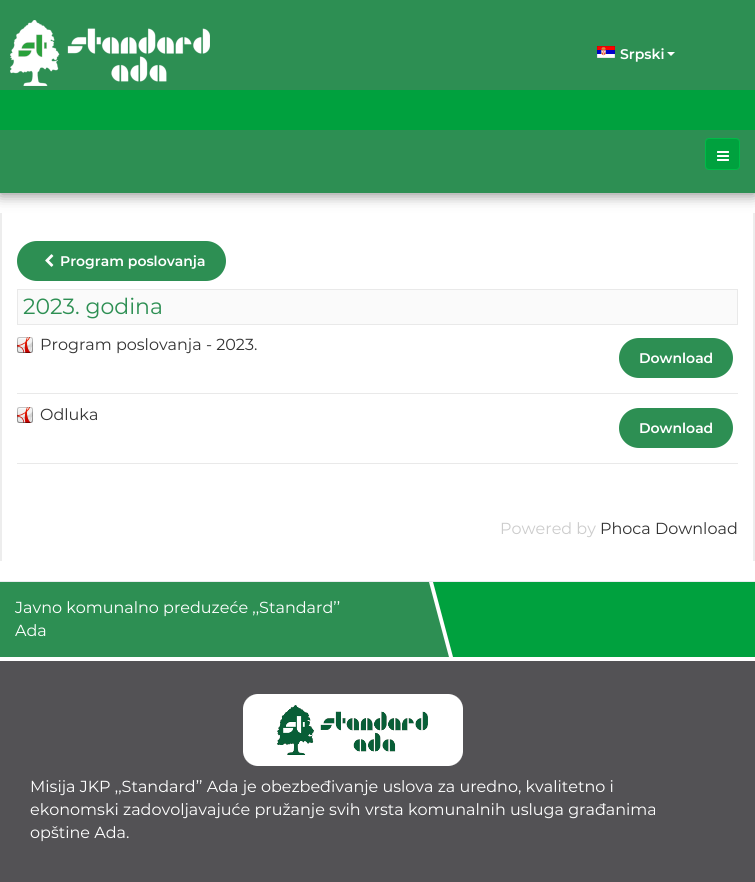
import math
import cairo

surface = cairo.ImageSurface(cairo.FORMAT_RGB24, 755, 882)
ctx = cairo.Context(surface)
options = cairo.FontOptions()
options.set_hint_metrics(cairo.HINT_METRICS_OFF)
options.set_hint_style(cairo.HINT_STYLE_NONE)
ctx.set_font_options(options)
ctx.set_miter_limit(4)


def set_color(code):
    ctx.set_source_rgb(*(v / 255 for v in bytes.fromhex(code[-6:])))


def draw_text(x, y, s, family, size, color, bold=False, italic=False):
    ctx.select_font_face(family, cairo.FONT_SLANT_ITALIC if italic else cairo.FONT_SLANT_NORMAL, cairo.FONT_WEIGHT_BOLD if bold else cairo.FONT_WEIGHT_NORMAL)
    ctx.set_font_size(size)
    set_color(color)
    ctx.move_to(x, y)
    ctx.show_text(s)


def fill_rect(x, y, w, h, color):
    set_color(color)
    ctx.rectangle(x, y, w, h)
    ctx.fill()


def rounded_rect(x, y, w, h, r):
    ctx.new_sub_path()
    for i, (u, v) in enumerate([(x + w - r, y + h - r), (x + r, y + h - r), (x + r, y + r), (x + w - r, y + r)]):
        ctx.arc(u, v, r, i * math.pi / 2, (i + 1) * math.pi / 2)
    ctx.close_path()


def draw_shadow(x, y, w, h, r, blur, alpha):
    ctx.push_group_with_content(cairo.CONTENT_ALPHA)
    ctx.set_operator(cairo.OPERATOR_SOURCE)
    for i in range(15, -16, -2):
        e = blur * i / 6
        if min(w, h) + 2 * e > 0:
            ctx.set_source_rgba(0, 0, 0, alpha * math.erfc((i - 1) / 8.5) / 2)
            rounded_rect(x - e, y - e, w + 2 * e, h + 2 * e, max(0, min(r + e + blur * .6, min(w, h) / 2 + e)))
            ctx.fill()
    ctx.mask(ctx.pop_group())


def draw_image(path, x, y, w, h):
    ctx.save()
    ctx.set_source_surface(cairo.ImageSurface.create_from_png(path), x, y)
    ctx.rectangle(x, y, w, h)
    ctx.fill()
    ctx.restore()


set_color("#ffffff")
ctx.paint()
set_color("#000000")
draw_shadow(0, 1, 755, 193, 0, 7.5, 0.5)
fill_rect(0, 0, 755, 193, "#2d8f53")
draw_image("assets/img1.png", 10, 20, 200, 66)
fill_rect(0, 90, 755, 40, "#00a13e")
draw_image("assets/img2.png", 597, 46, 18, 12)
draw_text(620, 59, "Srpski", "Montserrat SemiBold", 14, "#ffffff")
ctx.new_path()
ctx.move_to(667, 52)
ctx.line_to(675, 52)
ctx.line_to(671, 56)
ctx.close_path()
ctx.fill()
set_color("#00a13e")
rounded_rect(705.5, 138.5, 34, 31, 3.5)
ctx.fill_preserve()
set_color("#00bb48")
ctx.set_line_width(1)
ctx.stroke()
draw_image("assets/img3.png", 717, 151, 12, 10)
fill_rect(753, 213, 2, 348, "#ededed")
fill_rect(0, 213, 2, 348, "#ededed")
set_color("#2d8f53")
rounded_rect(17, 241, 209, 40, 20)
ctx.fill()
draw_image("assets/img4.png", 45, 254, 9, 13)
draw_text(60, 266, "Program poslovanja", "Montserrat SemiBold", 14, "#ffffff")
set_color("#fafafa")
ctx.rectangle(17.5, 289.5, 720, 35)
ctx.fill_preserve()
set_color("#e9e9e9")
ctx.stroke()
draw_text(23, 314, "2023. godina", "Montserrat", 22, "#2d8f53")
draw_image("assets/img5.png", 17, 337, 16, 16)
draw_text(40, 350, "Program poslovanja - 2023.", "Montserrat", 16, "#333333")
set_color("#2d8f53")
rounded_rect(619, 338, 114, 40, 20)
ctx.fill()
draw_text(639, 363, "Download", "Montserrat SemiBold", 14, "#ffffff")
fill_rect(17, 393, 721, 1, "#e9e9e9")
draw_image("assets/img5.png", 17, 407, 16, 16)
draw_text(40, 420, "Odluka", "Montserrat", 16, "#333333")
set_color("#2d8f53")
rounded_rect(619, 408, 114, 40, 20)
ctx.fill()
draw_text(639, 433, "Download", "Montserrat SemiBold", 14, "#ffffff")
fill_rect(17, 463, 721, 1, "#e9e9e9")
draw_text(500, 534, "Powered by", "Montserrat", 16, "#cccccc")
draw_text(600, 534, "Phoca Download", "Montserrat", 16, "#333333")
fill_rect(433, 582, 322, 75, "#00a13e")
fill_rect(0, 581, 755, 1, "#e9ecef")
set_color("#2d8f53")
ctx.new_path()
ctx.move_to(-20, 582)
ctx.line_to(433, 582)
ctx.line_to(453, 657)
ctx.line_to(0, 657)
ctx.close_path()
ctx.fill()
set_color("#ffffff")
ctx.new_path()
ctx.move_to(429, 582)
ctx.line_to(433, 582)
ctx.line_to(453, 657)
ctx.line_to(449, 657)
ctx.close_path()
ctx.fill()
draw_text(15, 613, "Javno komunalno preduzeće ,,Standard’’", "Montserrat", 16, "#ffffff")
draw_text(15, 636, "Ada", "Montserrat", 16, "#ffffff")
fill_rect(0, 661, 755, 221, "#535255")
draw_image("assets/img6.png", 243, 694, 220, 72)
draw_text(30, 792, "Misija JKP ,,Standard’’ Ada je obezbeđivanje uslova za uredno, kvalitetno i", "Montserrat", 16, "#ffffff")
draw_text(30, 815, "ekonomski zadovoljavajuće pružanje svih vrsta komunalnih usluga građanima", "Montserrat", 16, "#ffffff")
draw_text(30, 838, "opštine Ada.", "Montserrat", 16, "#ffffff")
surface.write_to_png("output.png")
